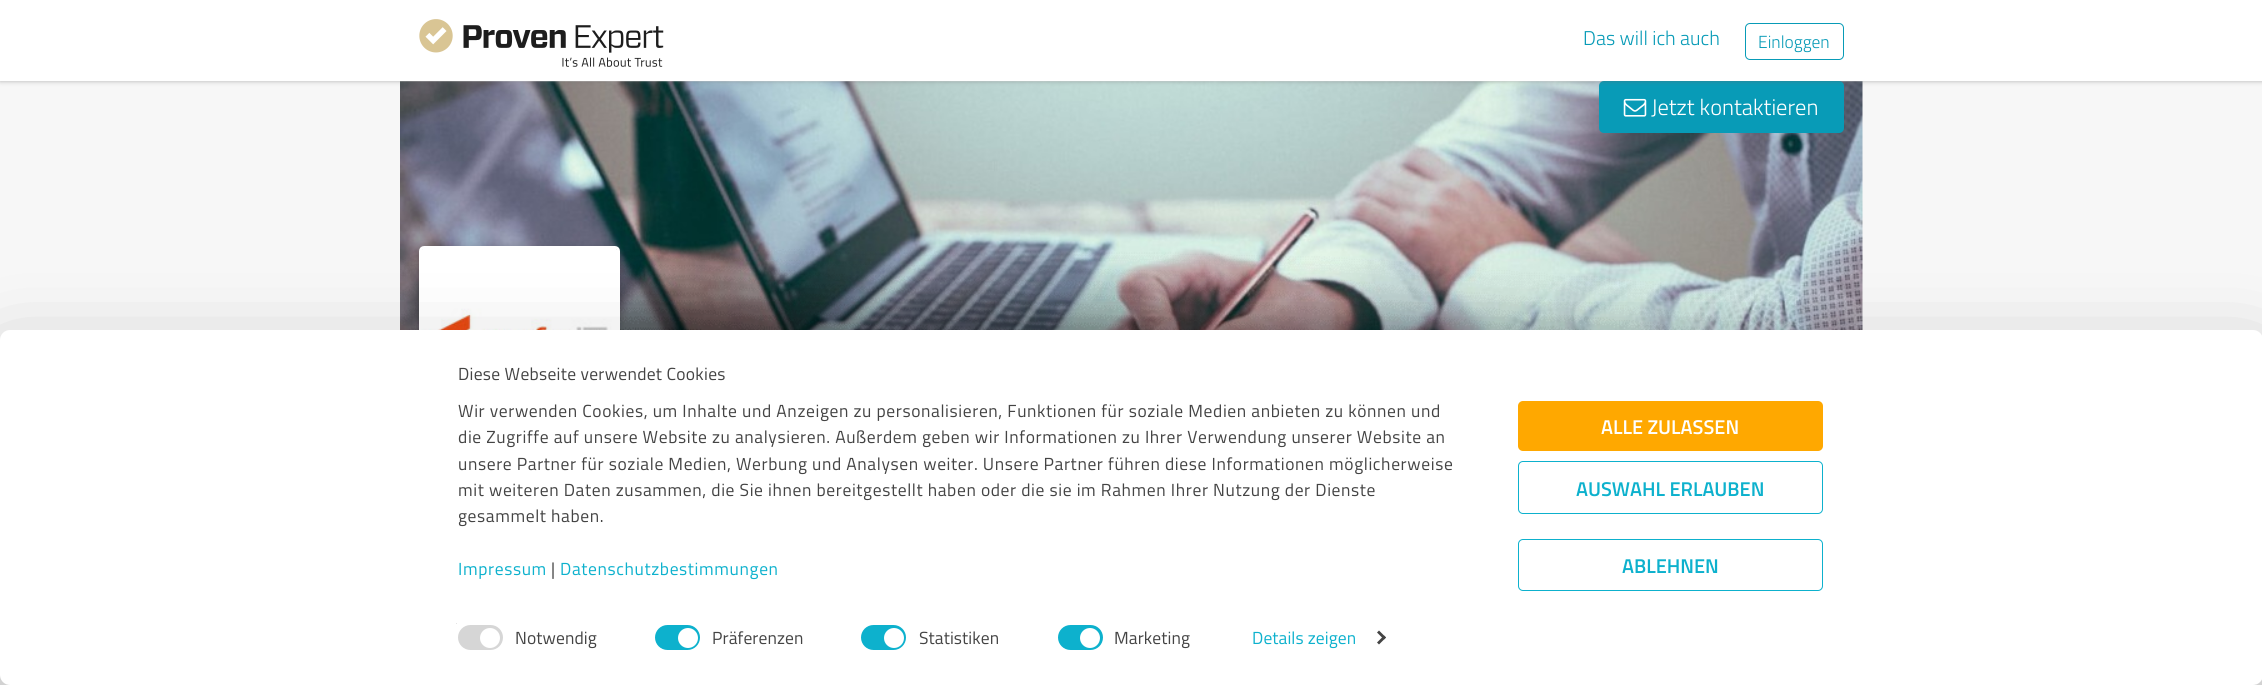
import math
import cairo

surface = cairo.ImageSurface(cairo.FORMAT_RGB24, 2262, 685)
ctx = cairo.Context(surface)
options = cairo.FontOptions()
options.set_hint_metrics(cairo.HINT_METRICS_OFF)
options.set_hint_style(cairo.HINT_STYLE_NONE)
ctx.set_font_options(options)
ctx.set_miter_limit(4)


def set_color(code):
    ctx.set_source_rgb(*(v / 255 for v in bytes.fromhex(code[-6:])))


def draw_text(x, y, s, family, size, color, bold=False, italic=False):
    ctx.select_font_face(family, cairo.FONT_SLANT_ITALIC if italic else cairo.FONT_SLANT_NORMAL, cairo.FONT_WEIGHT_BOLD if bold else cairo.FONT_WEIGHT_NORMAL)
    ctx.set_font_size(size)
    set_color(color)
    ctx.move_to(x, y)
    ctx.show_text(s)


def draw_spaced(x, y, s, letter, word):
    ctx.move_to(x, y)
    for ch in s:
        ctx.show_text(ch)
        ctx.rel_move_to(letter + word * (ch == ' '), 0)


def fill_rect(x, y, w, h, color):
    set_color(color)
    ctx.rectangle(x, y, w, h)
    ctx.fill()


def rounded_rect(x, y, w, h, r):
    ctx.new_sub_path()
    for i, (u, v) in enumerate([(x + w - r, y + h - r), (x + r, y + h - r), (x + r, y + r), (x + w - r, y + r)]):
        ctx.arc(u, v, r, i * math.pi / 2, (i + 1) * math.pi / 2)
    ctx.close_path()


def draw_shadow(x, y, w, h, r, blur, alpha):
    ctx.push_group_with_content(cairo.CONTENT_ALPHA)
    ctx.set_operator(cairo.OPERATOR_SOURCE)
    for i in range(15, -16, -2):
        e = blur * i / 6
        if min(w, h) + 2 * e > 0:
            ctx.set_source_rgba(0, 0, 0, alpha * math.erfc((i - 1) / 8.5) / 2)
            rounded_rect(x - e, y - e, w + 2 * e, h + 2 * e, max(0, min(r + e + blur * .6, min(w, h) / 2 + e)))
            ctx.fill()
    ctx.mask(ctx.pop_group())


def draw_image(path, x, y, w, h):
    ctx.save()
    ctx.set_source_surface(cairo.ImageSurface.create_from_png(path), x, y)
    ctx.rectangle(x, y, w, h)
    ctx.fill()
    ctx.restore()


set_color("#f7f7f7")
ctx.paint()
draw_image("assets/img2.png", 400, 81, 1463, 249)
set_color("#089bb7")
rounded_rect(1599, 81, 245, 52, 5)
ctx.fill()
set_color("#696969")
draw_shadow(0, 0, 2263, 81, 0, 2.5, 0.5)
fill_rect(0, 0, 2262, 81, "#ffffff")
draw_image("assets/img1.png", 419, 19, 245, 48)
draw_text(1583, 45, "Das will ich auch", "Titillium Web Light", 20, "#089bb7")
rounded_rect(1745.5, 23.5, 98, 36, 4.5)
ctx.set_line_width(1)
ctx.stroke()
draw_text(1758, 48, "Einloggen", "Titillium Web Light", 17.5, "#089bb7")
draw_image("assets/img3.png", 1623, 98, 24, 19)
draw_text(1651, 115, "Jetzt kontaktieren", "Titillium Web Light", 22.5, "#ffffff")
draw_image("assets/img4.png", 400, 249, 1463, 81)
set_color("#000000")
draw_shadow(419, 248, 201, 201, 5, 4, 0.2)
rounded_rect(420.5, 247.5, 198, 199, 3.5)
set_color("#ffffff")
ctx.set_line_width(3)
ctx.stroke()
draw_image("assets/img5.png", 421, 249, 196, 81)
set_color("#000000")
draw_shadow(0, 368, 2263, 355, 10, 44, 0.3)
set_color("#ffffff")
rounded_rect(0, 330, 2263, 355, 10)
ctx.fill()
ctx.select_font_face("Titillium Web")
ctx.set_font_size(17.5)
set_color("#444444")
draw_spaced(458, 380, "Diese Webseite verwendet Cookies", 0.3, 0)
draw_spaced(458, 417, "Wir verwenden Cookies, um Inhalte und Anzeigen zu personalisieren, Funktionen für soziale Medien anbieten zu können und", 0.62, 0)
draw_spaced(458, 443, "die Zugriffe auf unsere Website zu analysieren. Außerdem geben wir Informationen zu Ihrer Verwendung unserer Website an", 0.62, 0)
draw_spaced(458, 470, "unsere Partner für soziale Medien, Werbung und Analysen weiter. Unsere Partner führen diese Informationen möglicherweise", 0.62, 0)
draw_spaced(458, 496, "mit weiteren Daten zusammen, die Sie ihnen bereitgestellt haben oder die sie im Rahmen Ihrer Nutzung der Dienste", 0.62, 0)
draw_spaced(458, 522, "gesammelt haben.", 0.62, 0)
set_color("#0db1cd")
draw_spaced(458, 575, "Impressum", 0.62, 0)
set_color("#444444")
draw_spaced(551, 575, "|", 0.62, 0)
set_color("#0db1cd")
draw_spaced(560, 575, "Datenschutzbestimmungen", 0.62, 0)
fill_rect(456, 623, 1, 1, "#e5e5e5")
set_color("#d6d6d6")
rounded_rect(458, 625, 45, 25, 12.5)
ctx.fill()
set_color("#ffffff")
ctx.arc(490, 638, 10, 0, 2 * math.pi)
ctx.fill()
set_color("#444444")
draw_spaced(515, 644, "Notwendig", 0.1, 0)
set_color("#0db1cd")
rounded_rect(655, 625, 45, 25, 12.5)
ctx.fill()
set_color("#ffffff")
ctx.arc(688, 638, 10, 0, 2 * math.pi)
ctx.fill()
set_color("#444444")
draw_spaced(712, 644, "Präferenzen", 0.1, 0)
set_color("#0db1cd")
rounded_rect(861, 625, 45, 25, 12.5)
ctx.fill()
set_color("#ffffff")
ctx.arc(894, 638, 10, 0, 2 * math.pi)
ctx.fill()
set_color("#444444")
draw_spaced(919, 644, "Statistiken", 0.1, 0)
set_color("#0db1cd")
rounded_rect(1058, 625, 45, 25, 12.5)
ctx.fill()
set_color("#ffffff")
ctx.arc(1090, 638, 10, 0, 2 * math.pi)
ctx.fill()
set_color("#444444")
draw_spaced(1114, 644, "Marketing", 0.1, 0)
set_color("#0db1cd")
draw_spaced(1252, 644, "Details zeigen", 0.1, 0)
set_color("#444444")
ctx.new_path()
ctx.move_to(1379, 630.5)
ctx.line_to(1386, 637.5)
ctx.line_to(1384, 639.5)
ctx.line_to(1377, 632.5)
ctx.close_path()
ctx.fill()
ctx.new_path()
ctx.move_to(1384, 635.5)
ctx.line_to(1386, 637.5)
ctx.line_to(1379, 644.5)
ctx.line_to(1377, 642.5)
ctx.close_path()
ctx.fill()
set_color("#ffa800")
rounded_rect(1518, 401, 305, 50, 5)
ctx.fill()
draw_text(1601, 434, "ALLE ZULASSEN", "Titillium Web SemiBold", 20, "#ffffff")
rounded_rect(1518.5, 461.5, 304, 52, 4.5)
set_color("#0db1cd")
ctx.set_line_width(1)
ctx.stroke()
draw_text(1576, 496, "AUSWAHL ERLAUBEN", "Titillium Web SemiBold", 20, "#0db1cd")
rounded_rect(1518.5, 539.5, 304, 51, 4.5)
ctx.stroke()
draw_text(1622, 573, "ABLEHNEN", "Titillium Web SemiBold", 20, "#0db1cd")
surface.write_to_png("output.png")
